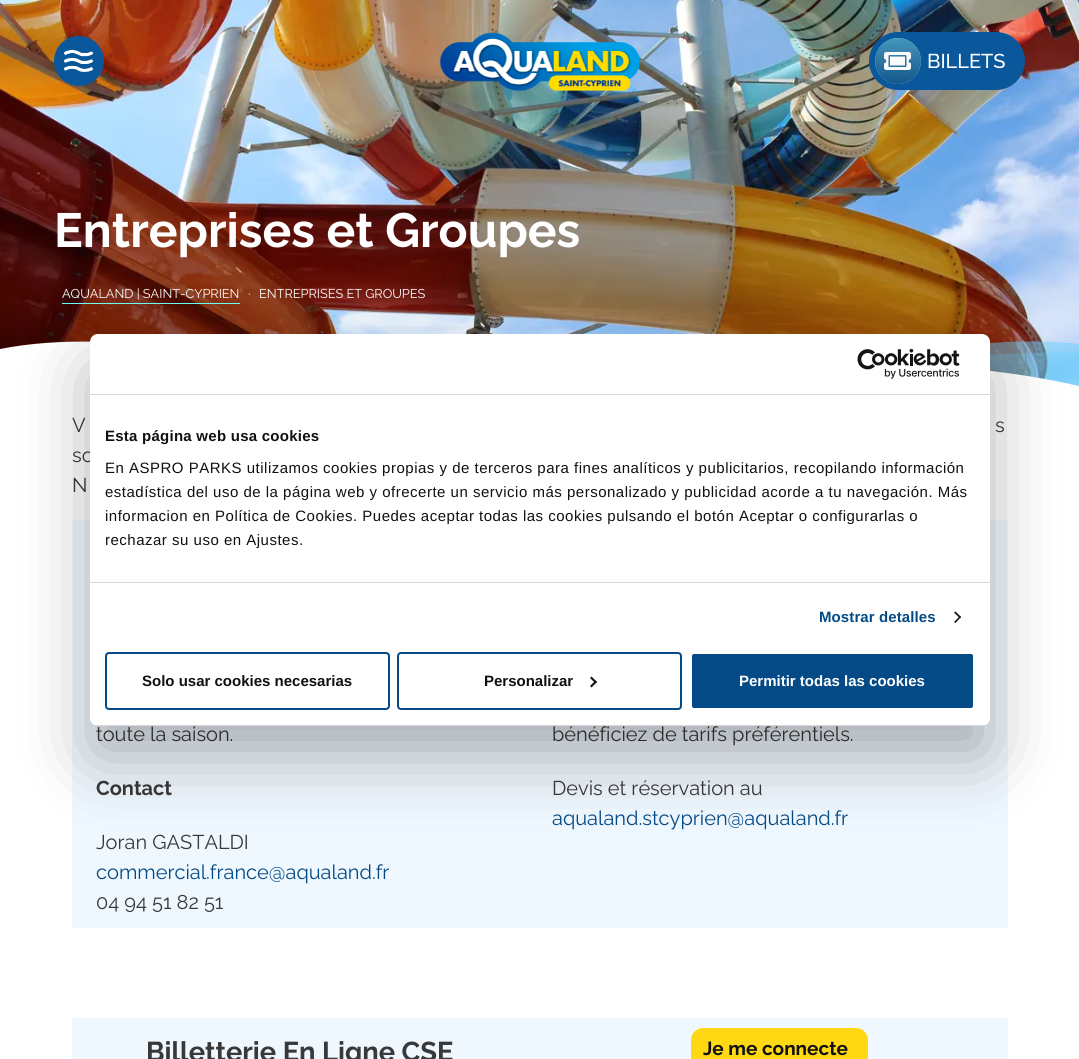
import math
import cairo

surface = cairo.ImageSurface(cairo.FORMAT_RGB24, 1079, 1059)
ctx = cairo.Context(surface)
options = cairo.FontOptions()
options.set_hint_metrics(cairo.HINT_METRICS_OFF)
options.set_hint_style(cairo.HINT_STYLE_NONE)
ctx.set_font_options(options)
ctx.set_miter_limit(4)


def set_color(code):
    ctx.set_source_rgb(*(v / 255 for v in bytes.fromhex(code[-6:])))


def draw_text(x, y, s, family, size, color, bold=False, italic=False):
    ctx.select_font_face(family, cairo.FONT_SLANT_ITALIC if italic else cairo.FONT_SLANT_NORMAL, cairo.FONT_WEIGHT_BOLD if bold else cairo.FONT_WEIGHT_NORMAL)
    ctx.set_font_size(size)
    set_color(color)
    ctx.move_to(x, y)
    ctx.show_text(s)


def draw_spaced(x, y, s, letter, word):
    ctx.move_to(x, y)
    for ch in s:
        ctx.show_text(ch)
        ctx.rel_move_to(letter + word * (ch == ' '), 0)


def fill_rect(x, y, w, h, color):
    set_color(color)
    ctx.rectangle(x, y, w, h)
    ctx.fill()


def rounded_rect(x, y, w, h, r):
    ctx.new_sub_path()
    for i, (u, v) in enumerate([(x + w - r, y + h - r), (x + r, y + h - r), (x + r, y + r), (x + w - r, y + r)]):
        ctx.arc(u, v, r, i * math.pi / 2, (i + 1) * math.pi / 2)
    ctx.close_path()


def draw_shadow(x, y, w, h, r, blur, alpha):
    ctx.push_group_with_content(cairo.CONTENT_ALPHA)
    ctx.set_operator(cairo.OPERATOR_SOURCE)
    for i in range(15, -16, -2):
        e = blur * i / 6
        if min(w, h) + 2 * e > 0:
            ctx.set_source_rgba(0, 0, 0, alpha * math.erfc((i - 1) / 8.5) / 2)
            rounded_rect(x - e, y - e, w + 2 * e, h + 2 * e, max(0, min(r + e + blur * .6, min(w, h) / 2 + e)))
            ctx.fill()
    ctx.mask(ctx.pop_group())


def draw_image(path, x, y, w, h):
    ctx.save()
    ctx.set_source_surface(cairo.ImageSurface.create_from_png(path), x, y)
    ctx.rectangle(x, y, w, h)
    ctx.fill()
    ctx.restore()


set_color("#ffffff")
ctx.paint()
draw_image("assets/img6.png", 0, 0, 1079, 386)
set_color("#0a589b")
ctx.arc(79, 61, 25, 0, 2 * math.pi)
ctx.fill()
draw_image("assets/img1.png", 64, 49, 30, 23)
draw_image("assets/img2.png", 439, 32, 201, 59)
rounded_rect(869, 32, 156, 58, 29)
ctx.fill()
draw_image("assets/img3.png", 875, 38, 46, 46)
draw_image("assets/img4.png", 875, 38, 46, 46)
draw_image("assets/img5.png", 884, 52, 27, 18)
draw_text(927, 68, "BILLETS", "Raleway Medium", 20, "#ffffff")
draw_text(54, 247, "Entreprises et Groupes", "Raleway", 48, "#ffffff", bold=True)
fill_rect(62, 303, 178, 1, "#6afff6")
draw_text(62, 298, "AQUALAND | SAINT-CYPRIEN", "Raleway", 12.75, "#ffffff")
draw_text(248, 298, "·", "Raleway", 12.75, "#ffffff")
draw_text(259, 298, "ENTREPRISES ET GROUPES", "Raleway", 12.75, "#ffffff")
draw_image("assets/img7.png", 990, 341, 89, 45)
ctx.new_path()
ctx.move_to(790, 370)
ctx.curve_to(738, 376, 687, 387, 635, 393)
ctx.curve_to(561, 402, 484, 403, 410, 393)
ctx.curve_to(338, 384, 264, 362, 193, 351)
ctx.curve_to(130, 341, 61, 337, 0, 349)
ctx.line_to(0, 401)
ctx.line_to(1079, 401)
ctx.line_to(1079, 386)
ctx.curve_to(987, 365, 887, 360, 790, 370)
ctx.close_path()
ctx.fill()
draw_text(72, 432, "V", "Raleway", 20, "#393939")
draw_text(995, 432, "s", "Raleway", 20, "#393939")
draw_text(72, 462, "so", "Raleway", 20, "#393939")
draw_text(72, 492, "N", "Raleway", 20, "#393939")
fill_rect(72, 520, 936, 408, "#f0f8ff")
draw_text(96, 741, "toute la saison.", "Raleway", 20, "#393939")
draw_text(96, 795, "Contact", "Raleway", 20, "#393939", bold=True)
draw_text(96, 849, "Joran GASTALDI", "Raleway", 20, "#393939")
draw_text(96, 879, "commercial.france@aqualand.fr", "Raleway", 20, "#044a86")
draw_text(96, 909, "04 94 51 82 51", "Raleway", 20, "#393939")
draw_text(552, 741, "bénéficiez de tarifs préférentiels.", "Raleway", 20, "#393939")
draw_text(552, 795, "Devis et réservation au", "Raleway", 20, "#393939")
draw_text(552, 825, "aqualand.stcyprien@aqualand.fr", "Raleway", 20, "#044a86")
fill_rect(72, 1018, 936, 41, "#f0f8ff")
draw_text(146, 1061, "Billetterie En Ligne CSE", "Raleway", 27.25, "#393939", bold=True)
set_color("#ffd814")
rounded_rect(691, 1028, 177, 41, 12)
ctx.fill()
draw_text(703, 1055, "Je me connecte", "Raleway", 19, "#0f1111", bold=True)
set_color("#000000")
draw_shadow(90, 366, 900, 392, 8, 34, 0.3)
set_color("#ffffff")
rounded_rect(90, 334, 900, 392, 8)
ctx.fill()
fill_rect(90, 394, 900, 1, "#d6d6d6")
draw_image("assets/img8.png", 857, 349, 103, 30)
fill_rect(90, 582, 900, 1, "#d6d6d6")
ctx.select_font_face("Liberation Sans", cairo.FONT_SLANT_NORMAL, cairo.FONT_WEIGHT_BOLD)
ctx.set_font_size(15)
set_color("#0f1111")
draw_spaced(105, 441, "Esta página web usa cookies", 0.25, 0)
ctx.select_font_face("Liberation Sans")
draw_spaced(105, 473, "En ASPRO PARKS utilizamos cookies propias y de terceros para fines analíticos y publicitarios, recopilando información", 0.5, 0)
draw_spaced(105, 497, "estadística del uso de la página web y ofrecerte un servicio más personalizado y publicidad acorde a tu navegación. Más", 0.5, 0)
draw_spaced(105, 521, "informacion en Política de Cookies. Puedes aceptar todas las cookies pulsando el botón Aceptar o configurarlas o", 0.5, 0)
draw_spaced(105, 545, "rechazar su uso en Ajustes.", 0.5, 0)
ctx.select_font_face("Liberation Sans", cairo.FONT_SLANT_NORMAL, cairo.FONT_WEIGHT_BOLD)
set_color("#044a86")
draw_spaced(819, 622, "Mostrar detalles", 0.1, 0)
set_color("#141414")
ctx.new_path()
ctx.move_to(955.5, 611.5)
ctx.line_to(961, 617)
ctx.line_to(960, 618.5)
ctx.line_to(954, 612.5)
ctx.close_path()
ctx.fill()
ctx.new_path()
ctx.move_to(960, 616)
ctx.line_to(961, 617)
ctx.line_to(955.5, 623)
ctx.line_to(954, 622)
ctx.close_path()
ctx.fill()
ctx.save()
rounded_rect(90, 334, 900, 392, 8)
ctx.clip()
fill_rect(90, 725, 900, 1, "#d6d6d6")
ctx.restore()
rounded_rect(106, 653, 283, 56, 3)
set_color("#044a86")
ctx.stroke()
draw_text(142, 686, "Solo usar cookies necesarias", "Liberation Sans", 15, "#0f1111", bold=True)
rounded_rect(398, 653, 283, 56, 3)
set_color("#044a86")
ctx.stroke()
draw_text(484, 686, "Personalizar", "Liberation Sans", 15, "#0f1111", bold=True)
set_color("#141414")
ctx.new_path()
ctx.move_to(591.5, 676.5)
ctx.line_to(597, 682)
ctx.line_to(595.5, 683.5)
ctx.line_to(590, 678)
ctx.close_path()
ctx.fill()
ctx.new_path()
ctx.move_to(595.5, 680.5)
ctx.line_to(597, 682)
ctx.line_to(591.5, 687.5)
ctx.line_to(590, 686)
ctx.close_path()
ctx.fill()
set_color("#044a86")
rounded_rect(691, 653, 283, 56, 3)
ctx.fill_preserve()
set_color("#ffffff")
ctx.stroke()
draw_text(739, 686, "Permitir todas las cookies", "Liberation Sans", 15, "#ffffff", bold=True)
surface.write_to_png("output.png")
